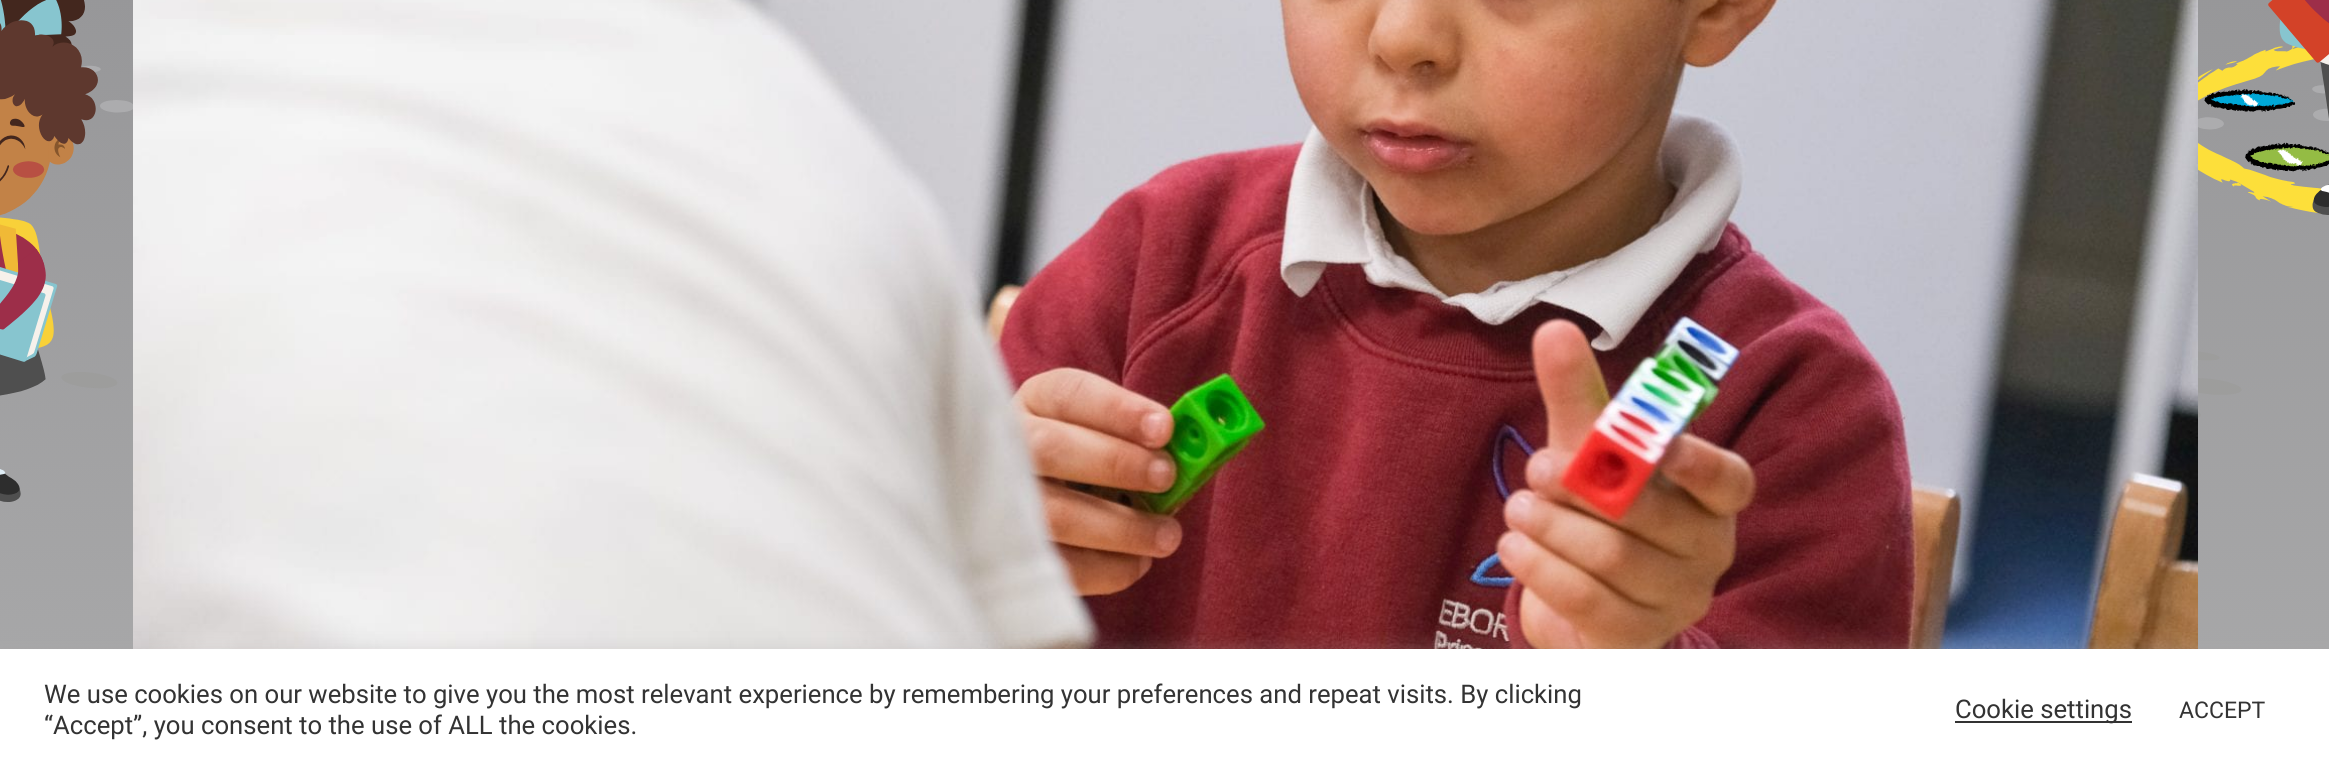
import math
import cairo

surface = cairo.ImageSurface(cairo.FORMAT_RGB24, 2329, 770)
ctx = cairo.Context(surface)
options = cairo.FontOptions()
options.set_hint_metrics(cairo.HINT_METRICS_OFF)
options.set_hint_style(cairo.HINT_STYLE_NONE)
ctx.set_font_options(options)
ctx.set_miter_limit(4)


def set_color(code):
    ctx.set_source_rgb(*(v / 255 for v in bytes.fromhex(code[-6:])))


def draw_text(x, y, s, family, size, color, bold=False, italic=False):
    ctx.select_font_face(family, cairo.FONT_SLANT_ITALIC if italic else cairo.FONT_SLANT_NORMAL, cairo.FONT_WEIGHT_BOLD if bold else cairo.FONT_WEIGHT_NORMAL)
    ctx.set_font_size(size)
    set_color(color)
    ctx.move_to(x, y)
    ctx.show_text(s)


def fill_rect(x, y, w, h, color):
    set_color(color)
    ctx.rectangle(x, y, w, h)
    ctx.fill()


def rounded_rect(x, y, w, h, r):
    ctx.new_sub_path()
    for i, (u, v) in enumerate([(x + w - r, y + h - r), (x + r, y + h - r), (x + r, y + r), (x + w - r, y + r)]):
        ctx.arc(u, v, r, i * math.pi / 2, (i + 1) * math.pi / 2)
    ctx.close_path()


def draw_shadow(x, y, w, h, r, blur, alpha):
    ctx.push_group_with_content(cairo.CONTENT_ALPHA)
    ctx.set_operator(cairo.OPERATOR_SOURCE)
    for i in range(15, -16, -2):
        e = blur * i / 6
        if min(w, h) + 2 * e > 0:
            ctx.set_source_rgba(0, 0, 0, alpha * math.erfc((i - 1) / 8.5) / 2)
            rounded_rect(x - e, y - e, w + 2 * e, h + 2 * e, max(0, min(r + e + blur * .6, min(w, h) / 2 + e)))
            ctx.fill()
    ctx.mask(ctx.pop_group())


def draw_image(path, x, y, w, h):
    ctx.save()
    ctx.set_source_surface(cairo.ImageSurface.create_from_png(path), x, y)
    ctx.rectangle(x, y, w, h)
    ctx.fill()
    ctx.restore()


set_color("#ffffff")
ctx.paint()
draw_image("assets/img1.png", 0, 0, 2329, 649)
draw_image("assets/img2.png", 0, 0, 98, 502)
draw_image("assets/img3.png", 133, 0, 2065, 649)
draw_image("assets/img4.png", 2268, 0, 61, 215)
set_color("#acabab")
draw_shadow(0, 648, 2329, 120, 0, 9, 0.3)
fill_rect(0, 649, 2329, 121, "#ffffff")
draw_text(44, 703, "We use cookies on our website to give you the most relevant experience by remembering your preferences and repeat visits. By clicking", "Roboto", 25.67, "#333333")
draw_text(44, 734, "“Accept”, you consent to the use of ALL the cookies.", "Roboto", 25.67, "#333333")
fill_rect(1955, 721, 177, 2, "#333333")
draw_text(1955, 718, "Cookie settings", "Roboto", 25.67, "#333333")
draw_text(2179, 718, "ACCEPT", "Roboto", 23, "#333333")
surface.write_to_png("output.png")
